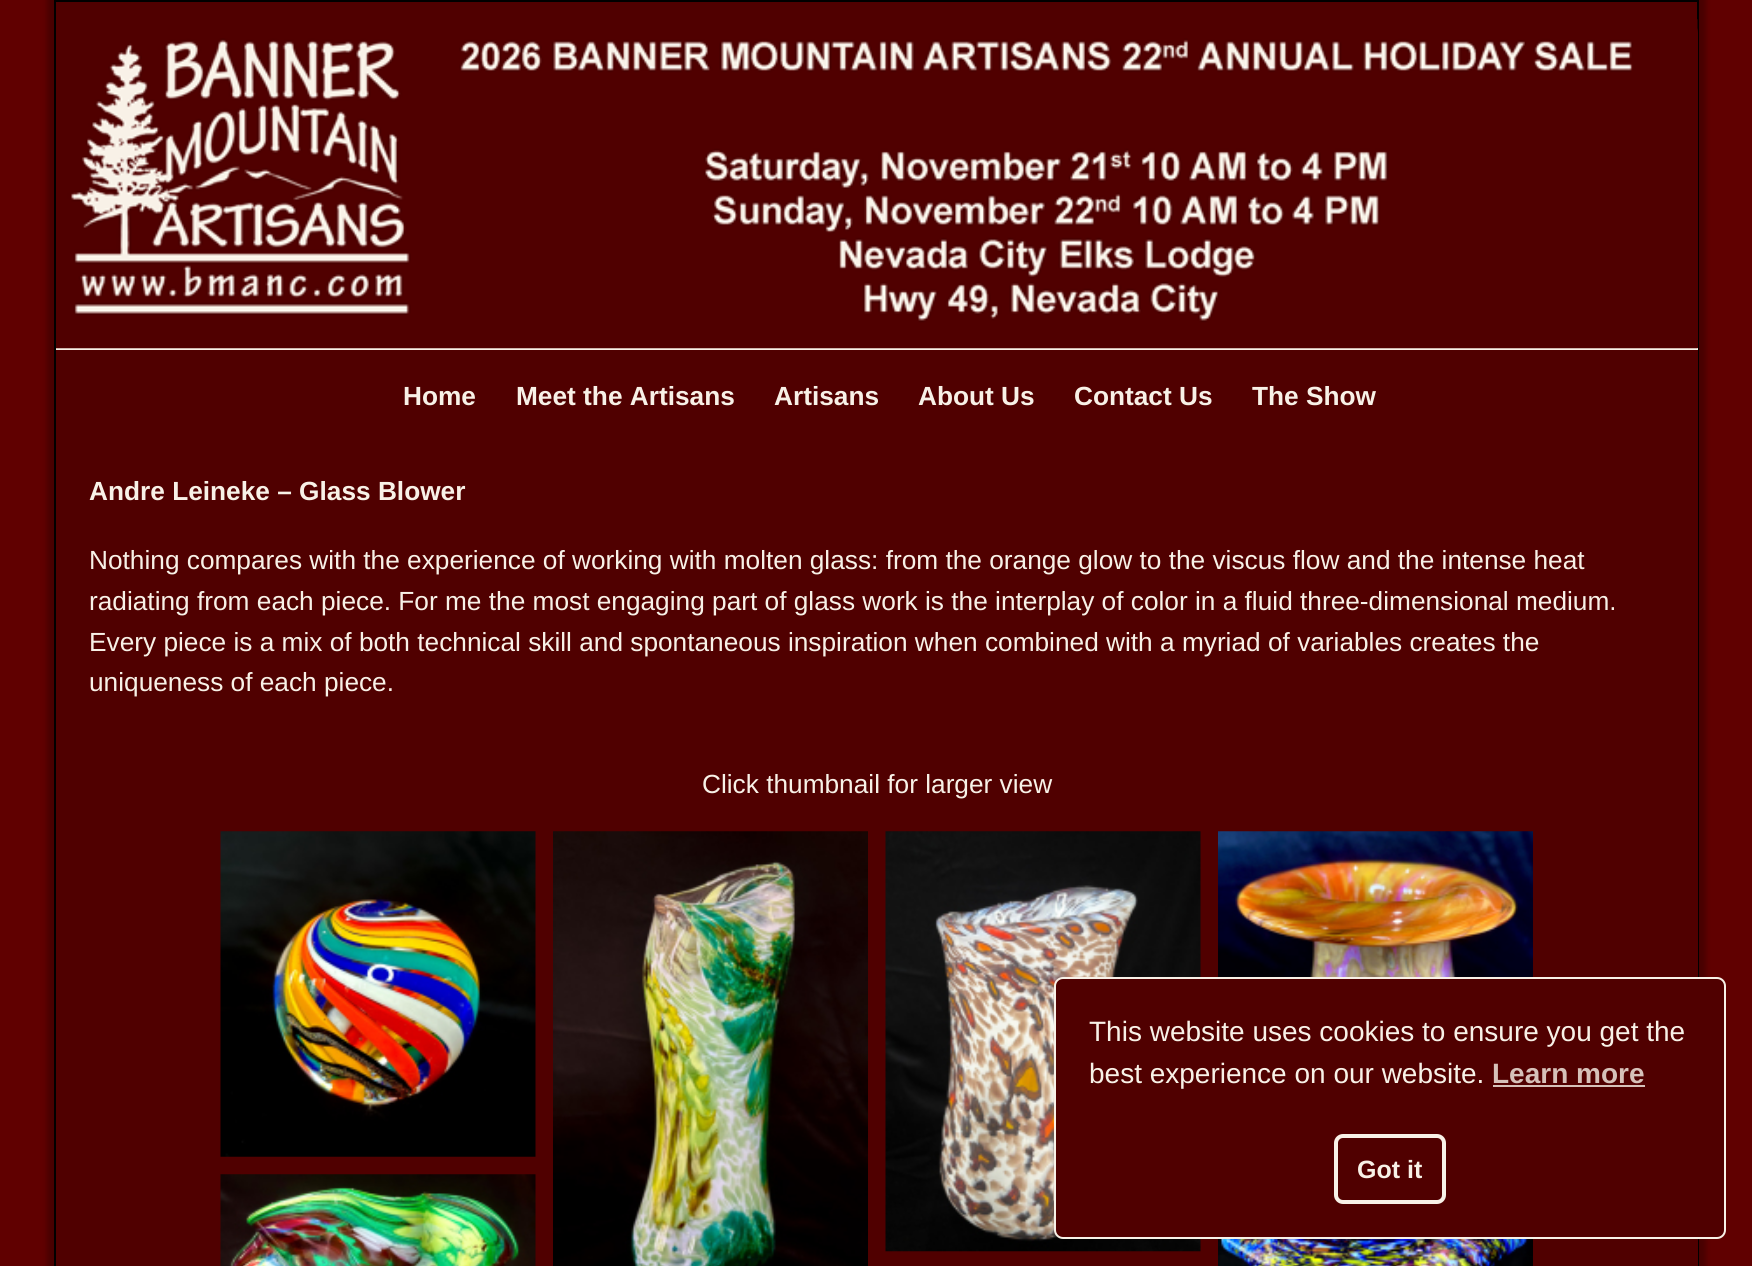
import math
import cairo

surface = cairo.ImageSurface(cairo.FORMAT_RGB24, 1752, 1266)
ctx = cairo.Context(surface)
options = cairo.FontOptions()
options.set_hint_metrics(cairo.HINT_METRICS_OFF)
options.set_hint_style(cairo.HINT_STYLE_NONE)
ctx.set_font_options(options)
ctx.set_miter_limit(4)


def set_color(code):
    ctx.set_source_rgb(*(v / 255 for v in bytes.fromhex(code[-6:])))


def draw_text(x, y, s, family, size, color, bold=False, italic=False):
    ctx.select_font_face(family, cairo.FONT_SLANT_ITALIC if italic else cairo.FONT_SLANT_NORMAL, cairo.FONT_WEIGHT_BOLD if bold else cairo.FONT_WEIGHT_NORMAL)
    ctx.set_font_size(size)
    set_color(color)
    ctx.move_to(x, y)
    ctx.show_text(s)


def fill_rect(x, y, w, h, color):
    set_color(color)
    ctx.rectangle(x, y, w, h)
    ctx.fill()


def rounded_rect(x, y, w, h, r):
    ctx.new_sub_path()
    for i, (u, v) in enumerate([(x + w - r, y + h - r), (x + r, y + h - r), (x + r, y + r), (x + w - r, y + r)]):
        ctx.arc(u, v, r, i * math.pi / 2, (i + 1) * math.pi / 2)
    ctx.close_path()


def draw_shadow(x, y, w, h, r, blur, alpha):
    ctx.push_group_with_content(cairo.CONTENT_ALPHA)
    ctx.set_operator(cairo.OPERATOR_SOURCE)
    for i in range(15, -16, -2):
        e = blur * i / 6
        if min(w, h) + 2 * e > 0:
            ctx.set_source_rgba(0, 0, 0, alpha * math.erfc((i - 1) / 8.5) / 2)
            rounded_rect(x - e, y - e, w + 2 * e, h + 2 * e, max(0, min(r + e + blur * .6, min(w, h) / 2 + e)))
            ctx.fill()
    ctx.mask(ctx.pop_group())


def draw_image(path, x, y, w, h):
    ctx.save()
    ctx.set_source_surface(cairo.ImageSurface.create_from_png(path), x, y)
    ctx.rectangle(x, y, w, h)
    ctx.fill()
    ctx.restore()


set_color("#600000")
ctx.paint()
set_color("#000000")
draw_shadow(47, -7, 1659, 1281, 0, 2.5, 0.25)
fill_rect(56, 2, 1641, 18, "#500000")
ctx.rectangle(55, 1, 1643, 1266)
set_color("#000000")
ctx.stroke()
set_color("#500000")
rounded_rect(56, 19, 1642, 406, 14)
ctx.fill()
fill_rect(56, 348, 1642, 2, "#f8f1e7")
draw_image("assets/img1.png", 56, 19, 1642, 330)
draw_text(403, 405, "Home", "Liberation Sans", 26.25, "#f8f1e7", bold=True)
draw_text(516, 405, "Meet the Artisans", "Liberation Sans", 26.25, "#f8f1e7", bold=True)
draw_text(774, 405, "Artisans", "Liberation Sans", 26.25, "#f8f1e7", bold=True)
draw_text(918, 405, "About Us", "Liberation Sans", 26.25, "#f8f1e7", bold=True)
draw_text(1074, 405, "Contact Us", "Liberation Sans", 26.25, "#f8f1e7", bold=True)
draw_text(1252, 405, "The Show", "Liberation Sans", 26.25, "#f8f1e7", bold=True)
fill_rect(56, 411, 1642, 855, "#500000")
draw_text(89, 500, "Andre Leineke – Glass Blower", "Liberation Sans", 26.25, "#f8f1e7", bold=True)
draw_text(89, 569, "Nothing compares with the experience of working with molten glass: from the orange glow to the viscus flow and the intense heat", "Liberation Sans", 26.25, "#f8f1e7")
draw_text(89, 610, "radiating from each piece. For me the most engaging part of glass work is the interplay of color in a fluid three-dimensional medium.", "Liberation Sans", 26.25, "#f8f1e7")
draw_text(89, 651, "Every piece is a mix of both technical skill and spontaneous inspiration when combined with a myriad of variables creates the", "Liberation Sans", 26.25, "#f8f1e7")
draw_text(89, 691, "uniqueness of each piece.", "Liberation Sans", 26.25, "#f8f1e7")
draw_text(702, 793, "Click thumbnail for larger view", "Liberation Sans", 26.25, "#f8f1e7")
draw_image("assets/img2.png", 220, 831, 316, 326)
draw_image("assets/img3.png", 553, 831, 315, 435)
draw_image("assets/img4.png", 885, 831, 316, 421)
draw_image("assets/img5.png", 1218, 831, 315, 146)
draw_image("assets/img6.png", 220, 1174, 316, 92)
draw_image("assets/img7.png", 1218, 1239, 315, 27)
set_color("#500000")
rounded_rect(1055, 978, 670, 260, 8)
ctx.fill_preserve()
set_color("#f8f1e7")
ctx.stroke()
draw_text(1089, 1041, "This website uses cookies to ensure you get the", "Liberation Sans", 28, "#f8f1e7")
draw_text(1089, 1083, "best experience on our website.", "Liberation Sans", 28, "#f8f1e7")
draw_text(1492, 1083, "Learn more", "Liberation Sans", 28, "#d6c1b9", bold=True)
fill_rect(1493, 1085, 152, 2, "#d6c1b9")
rounded_rect(1336, 1136, 108, 66, 7)
set_color("#f8f1e7")
ctx.set_line_width(4)
ctx.stroke()
draw_text(1357, 1178, "Got it", "Liberation Sans", 25, "#f8f1e7", bold=True)
surface.write_to_png("output.png")
